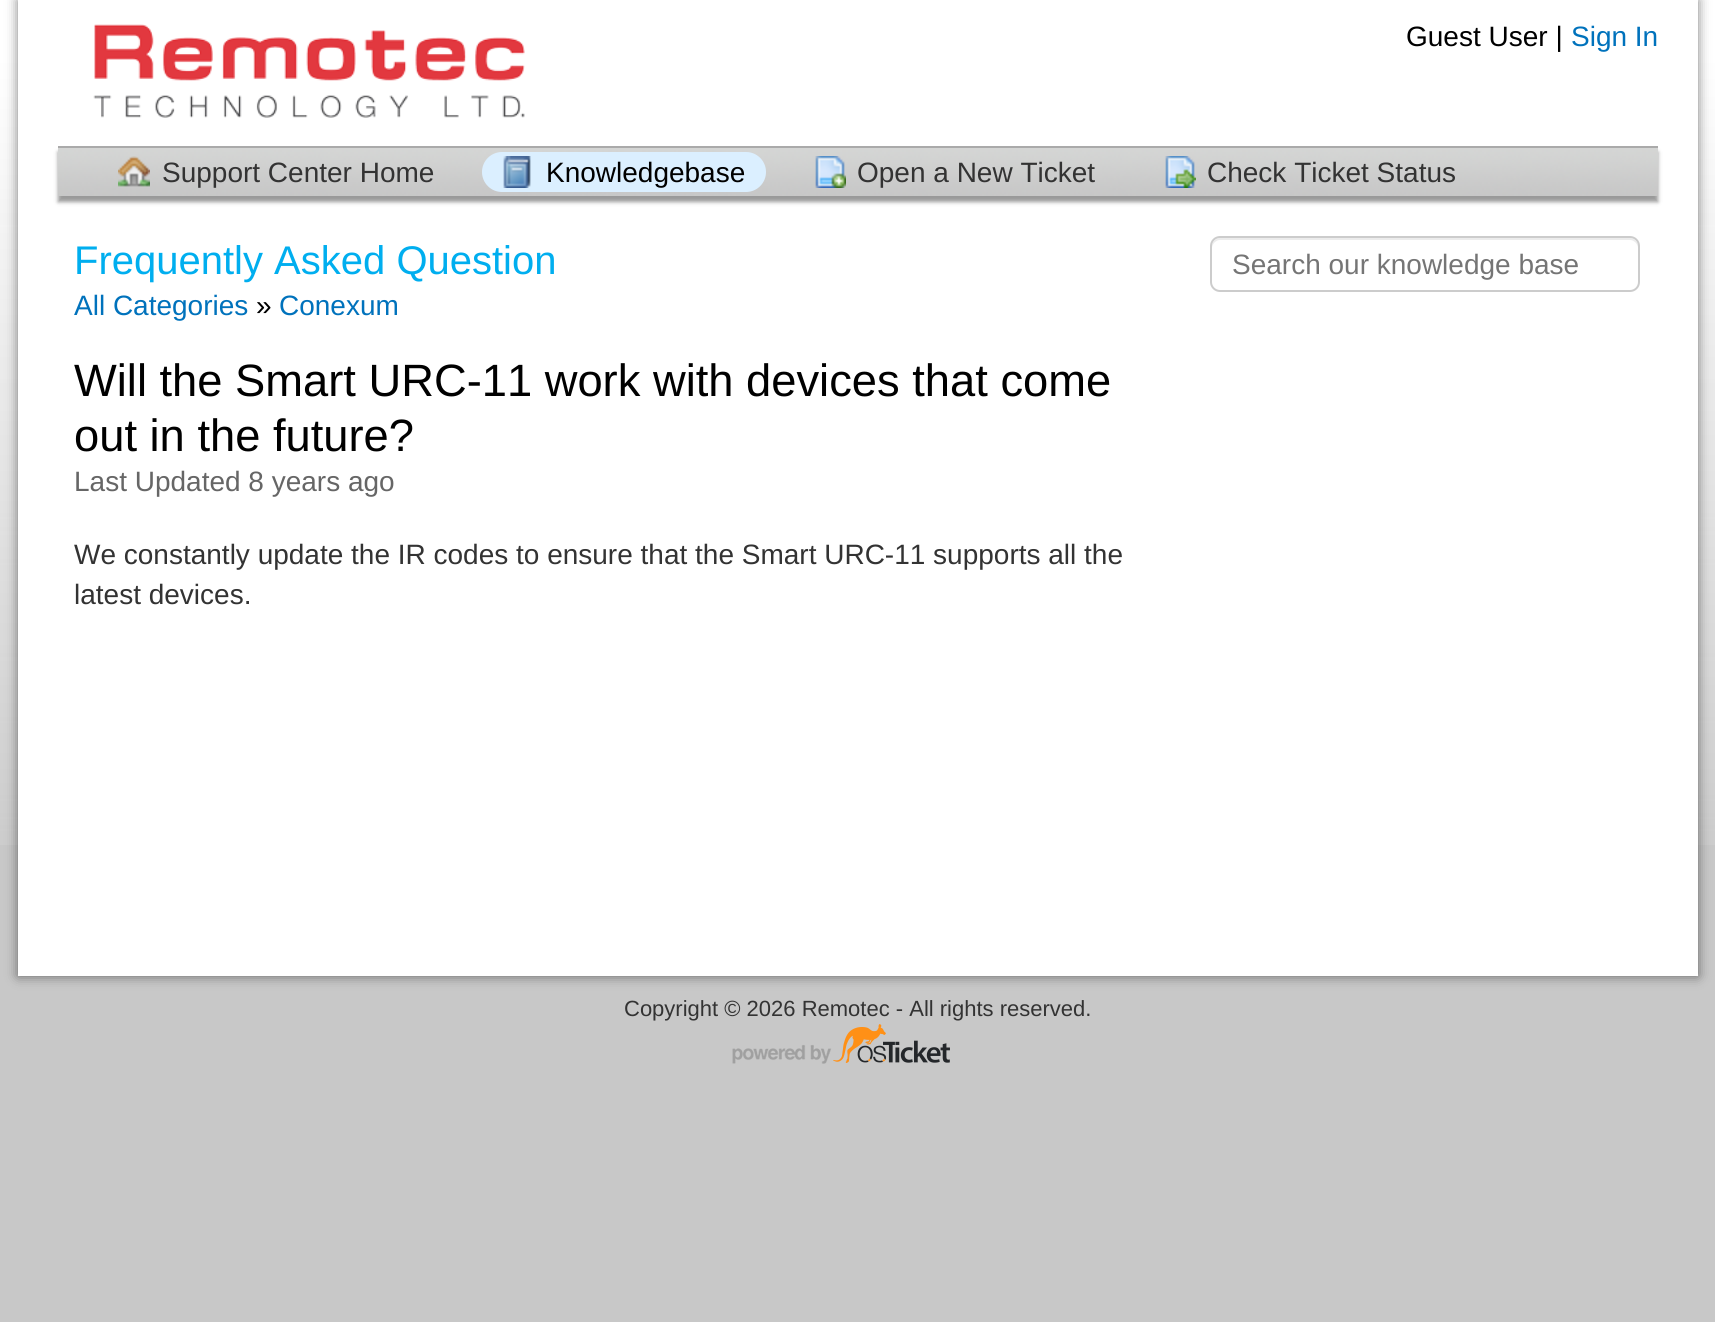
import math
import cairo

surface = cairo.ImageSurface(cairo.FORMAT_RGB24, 1715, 1322)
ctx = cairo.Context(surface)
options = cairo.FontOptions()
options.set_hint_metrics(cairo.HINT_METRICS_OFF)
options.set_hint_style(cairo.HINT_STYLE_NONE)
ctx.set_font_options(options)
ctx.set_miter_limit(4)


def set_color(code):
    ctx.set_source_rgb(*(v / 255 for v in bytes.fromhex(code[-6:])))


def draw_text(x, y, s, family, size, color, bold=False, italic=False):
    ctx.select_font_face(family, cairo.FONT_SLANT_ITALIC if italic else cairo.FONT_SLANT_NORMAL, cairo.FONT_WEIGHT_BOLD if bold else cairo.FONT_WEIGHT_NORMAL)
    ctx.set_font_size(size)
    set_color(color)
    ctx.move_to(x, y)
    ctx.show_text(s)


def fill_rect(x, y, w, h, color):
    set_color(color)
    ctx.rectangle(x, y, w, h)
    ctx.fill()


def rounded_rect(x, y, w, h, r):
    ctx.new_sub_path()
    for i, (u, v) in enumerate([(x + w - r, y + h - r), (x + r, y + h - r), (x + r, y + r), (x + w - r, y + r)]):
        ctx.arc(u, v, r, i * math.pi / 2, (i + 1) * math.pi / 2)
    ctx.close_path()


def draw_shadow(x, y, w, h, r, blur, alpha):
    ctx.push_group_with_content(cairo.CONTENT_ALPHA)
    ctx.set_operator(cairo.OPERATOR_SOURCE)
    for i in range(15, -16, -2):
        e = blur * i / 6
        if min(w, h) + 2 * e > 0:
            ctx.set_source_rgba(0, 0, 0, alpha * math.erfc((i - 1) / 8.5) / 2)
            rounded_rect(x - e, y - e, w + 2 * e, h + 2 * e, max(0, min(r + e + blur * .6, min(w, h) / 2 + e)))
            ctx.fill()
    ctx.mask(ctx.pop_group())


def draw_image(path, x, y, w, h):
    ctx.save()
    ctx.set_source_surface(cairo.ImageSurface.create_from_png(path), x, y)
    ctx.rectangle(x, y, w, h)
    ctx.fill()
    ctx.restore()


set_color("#c8c8c8")
ctx.paint()
draw_image("assets/img1.png", 0, 0, 1715, 845)
set_color("#000000")
draw_shadow(18, 0, 1680, 976, 0, 6, 0.5)
fill_rect(18, 0, 1680, 976, "#ffffff")
draw_image("assets/img2.png", 93, 24, 432, 94)
draw_text(1406, 46, "Guest User |", "Liberation Sans", 28, "#000000")
draw_text(1571, 46, "Sign In", "Liberation Sans", 28, "#0072bc")
set_color("#000000")
draw_shadow(58, 152, 1600, 50, 0, 2, 0.4)
draw_image("assets/img3.png", 58, 148, 1600, 48)
fill_rect(58, 146, 1600, 2, "#aaaaaa")
draw_image("assets/img4.png", 118, 156, 32, 31)
draw_text(162, 182, "Support Center Home", "Liberation Sans", 28, "#333333")
set_color("#dbefff")
rounded_rect(482, 152, 284, 40, 20)
ctx.fill()
draw_image("assets/img5.png", 503, 156, 28, 32)
draw_text(546, 182, "Knowledgebase", "Liberation Sans", 28, "#000000")
draw_image("assets/img6.png", 815, 156, 31, 32)
draw_text(857, 182, "Open a New Ticket", "Liberation Sans", 28, "#333333")
draw_image("assets/img7.png", 1165, 156, 31, 32)
draw_text(1207, 182, "Check Ticket Status", "Liberation Sans", 28, "#333333")
draw_text(74, 274, "Frequently Asked Question", "Liberation Sans", 40, "#00aeef")
draw_text(74, 315, "All Categories", "Liberation Sans", 28, "#0072bc")
draw_text(256, 315, "»", "Liberation Sans", 28, "#000000")
draw_text(279, 315, "Conexum", "Liberation Sans", 28, "#0072bc")
draw_text(74, 396, "Will the Smart URC-11 work with devices that come", "Liberation Sans", 45.3, "#000000")
draw_text(74, 451, "out in the future?", "Liberation Sans", 45.3, "#000000")
draw_text(74, 491, "Last Updated 8 years ago", "Liberation Sans", 28, "#666666")
draw_text(74, 564, "We constantly update the IR codes to ensure that the Smart URC-11 supports all the", "Liberation Sans", 28, "#333333")
draw_text(74, 604, "latest devices.", "Liberation Sans", 28, "#333333")
set_color("#ececec")
ctx.new_path()
ctx.move_to(1220, 240)
ctx.line_to(1630, 240)
ctx.curve_to(1634, 240, 1638, 244, 1638, 248)
ctx.line_to(1638, 246)
ctx.curve_to(1638, 242, 1634, 238, 1630, 238)
ctx.line_to(1220, 238)
ctx.curve_to(1216, 238, 1212, 242, 1212, 246)
ctx.line_to(1212, 248)
ctx.curve_to(1212, 244, 1216, 240, 1220, 240)
ctx.close_path()
ctx.fill()
rounded_rect(1211, 237, 428, 54, 9)
set_color("#cccccc")
ctx.stroke()
draw_text(1232, 274, "Search our knowledge base", "Liberation Sans", 28, "#757575")
draw_text(624, 1016, "Copyright © 2026 Remotec - All rights reserved.", "Liberation Sans", 22, "#333333")
draw_image("assets/img8.png", 732, 1024, 218, 40)
surface.write_to_png("output.png")
